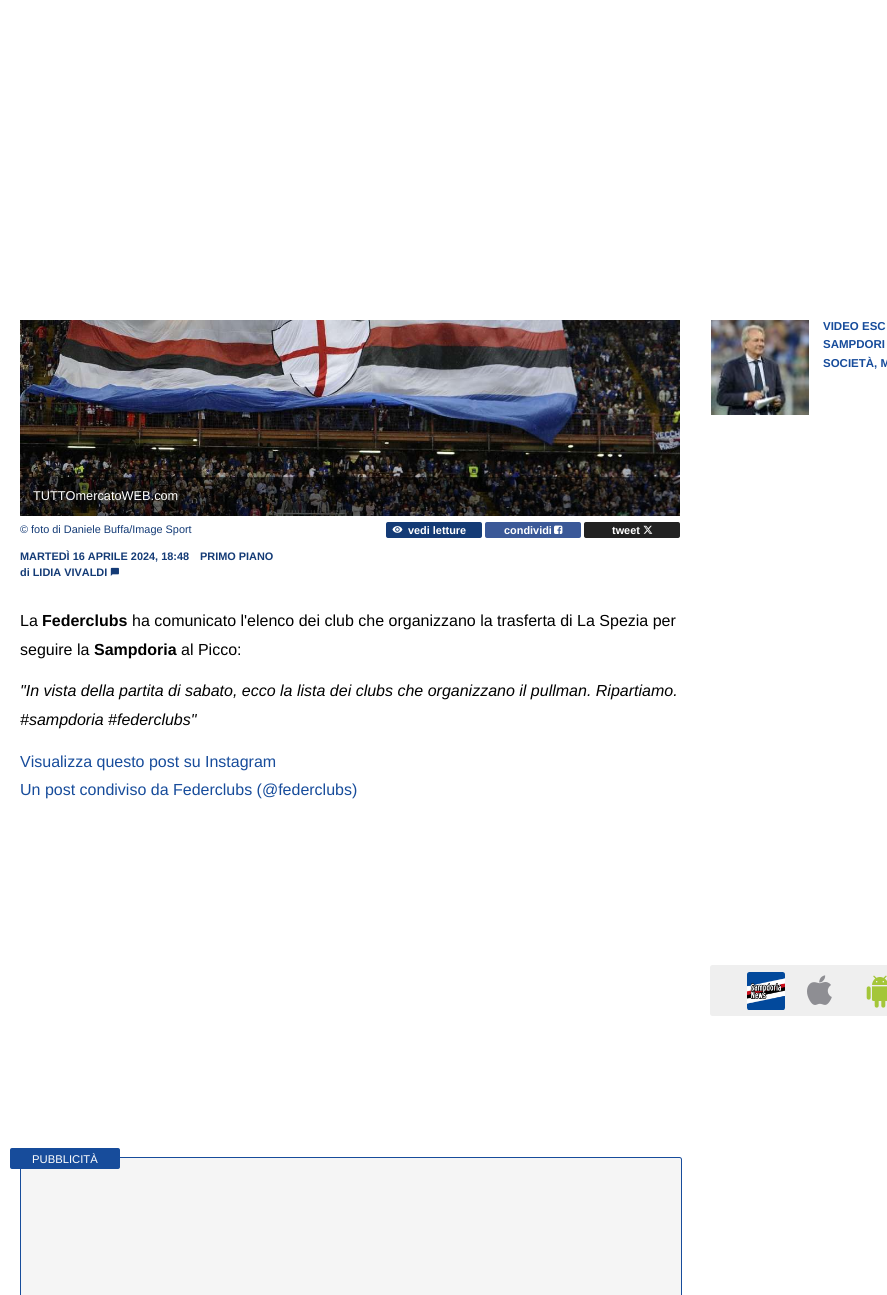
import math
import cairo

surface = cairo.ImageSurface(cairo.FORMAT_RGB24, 887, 1295)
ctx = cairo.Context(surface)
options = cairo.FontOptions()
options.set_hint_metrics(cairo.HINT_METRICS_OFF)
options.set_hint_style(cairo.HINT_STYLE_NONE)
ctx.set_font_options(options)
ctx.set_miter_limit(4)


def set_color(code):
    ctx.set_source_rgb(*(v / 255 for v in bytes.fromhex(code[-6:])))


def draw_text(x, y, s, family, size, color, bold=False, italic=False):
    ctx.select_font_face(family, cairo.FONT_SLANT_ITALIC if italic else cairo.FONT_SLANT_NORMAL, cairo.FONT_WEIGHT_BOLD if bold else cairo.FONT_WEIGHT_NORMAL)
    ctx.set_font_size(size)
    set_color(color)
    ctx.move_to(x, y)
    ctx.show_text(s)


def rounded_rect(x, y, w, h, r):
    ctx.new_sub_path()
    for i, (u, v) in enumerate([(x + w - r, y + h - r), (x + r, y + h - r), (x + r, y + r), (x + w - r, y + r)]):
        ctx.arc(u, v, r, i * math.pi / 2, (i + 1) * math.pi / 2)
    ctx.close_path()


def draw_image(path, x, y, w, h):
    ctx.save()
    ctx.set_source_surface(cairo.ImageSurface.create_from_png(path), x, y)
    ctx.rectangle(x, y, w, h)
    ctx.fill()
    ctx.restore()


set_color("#ffffff")
ctx.paint()
draw_image("assets/img1.png", 711, 320, 98, 95)
draw_text(823, 330, "VIDEO ESC", "Liberation Sans", 11.5, "#174c9b", bold=True)
draw_text(823, 348, "SAMPDORI", "Liberation Sans", 11.5, "#174c9b", bold=True)
draw_text(823, 367, "SOCIETÀ, M", "Liberation Sans", 11.5, "#174c9b", bold=True)
set_color("#efefef")
rounded_rect(710, 965, 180, 51, 2.5)
ctx.fill()
draw_image("assets/img2.png", 747, 972, 38, 38)
draw_image("assets/img3.png", 807, 975, 25, 30)
draw_image("assets/img4.png", 866, 975, 21, 33)
draw_image("assets/img5.png", 20, 320, 660, 196)
ctx.set_source_rgba(0, 0, 0, 0.5)
ctx.rectangle(20, 477, 660, 39)
ctx.fill()
draw_text(33, 500, "TUTTOmercatoWEB.com", "Liberation Sans", 12.75, "#ffffff")
draw_text(20, 533, "© foto di Daniele Buffa/Image Sport", "Liberation Sans", 10.9, "#143b76")
rounded_rect(386, 522, 96, 16, 2)
ctx.fill()
draw_image("assets/img6.png", 392, 526, 11, 7)
draw_text(408, 534, "vedi letture", "Liberation Sans", 10.9, "#ffffff", bold=True)
set_color("#3b5998")
rounded_rect(485, 522, 96, 16, 2)
ctx.fill()
draw_text(504, 534, "condividi", "Liberation Sans", 10.9, "#ffffff", bold=True)
draw_image("assets/img7.png", 554, 525, 9, 9)
set_color("#222222")
rounded_rect(584, 522, 96, 16, 2)
ctx.fill()
draw_text(612, 534, "tweet", "Liberation Sans", 10.9, "#ffffff", bold=True)
draw_image("assets/img8.png", 643, 525, 10, 9)
draw_text(20, 560, "MARTEDÌ 16 APRILE 2024, 18:48", "Liberation Sans", 10.9, "#143b76", bold=True)
draw_text(200, 560, "PRIMO PIANO", "Liberation Sans", 10.9, "#143b76", bold=True)
draw_text(20, 576, "di LIDIA VIVALDI", "Liberation Sans", 10.9, "#143b76", bold=True)
draw_image("assets/img9.png", 110, 567, 9, 9)
draw_text(20, 626, "La", "Liberation Sans", 16, "#000000")
draw_text(42, 626, "Federclubs", "Liberation Sans", 16, "#000000", bold=True)
draw_text(132, 626, "ha comunicato l'elenco dei club che organizzano la trasferta di La Spezia per", "Liberation Sans", 16, "#000000")
draw_text(20, 655, "seguire la", "Liberation Sans", 16, "#000000")
draw_text(94, 655, "Sampdoria", "Liberation Sans", 16, "#000000", bold=True)
draw_text(181, 655, "al Picco:", "Liberation Sans", 16, "#000000")
draw_text(20, 696, "\"In vista della partita di sabato, ecco la lista dei clubs che organizzano il pullman. Ripartiamo.", "Liberation Sans", 16, "#000000", italic=True)
draw_text(20, 725, "#sampdoria #federclubs\"", "Liberation Sans", 16, "#000000", italic=True)
draw_text(20, 767, "Visualizza questo post su Instagram", "Liberation Sans", 16, "#174c9b")
draw_text(20, 795, "Un post condiviso da Federclubs (@federclubs)", "Liberation Sans", 16, "#174c9b")
set_color("#f5f5f5")
rounded_rect(20.5, 1157.5, 661, 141, 2)
ctx.fill_preserve()
set_color("#174c9b")
ctx.set_line_width(1)
ctx.stroke()
rounded_rect(10, 1148, 110, 21, 2)
ctx.fill()
draw_text(32, 1163, "PUBBLICITÀ", "Liberation Sans", 11.25, "#ffffff")
surface.write_to_png("output.png")
